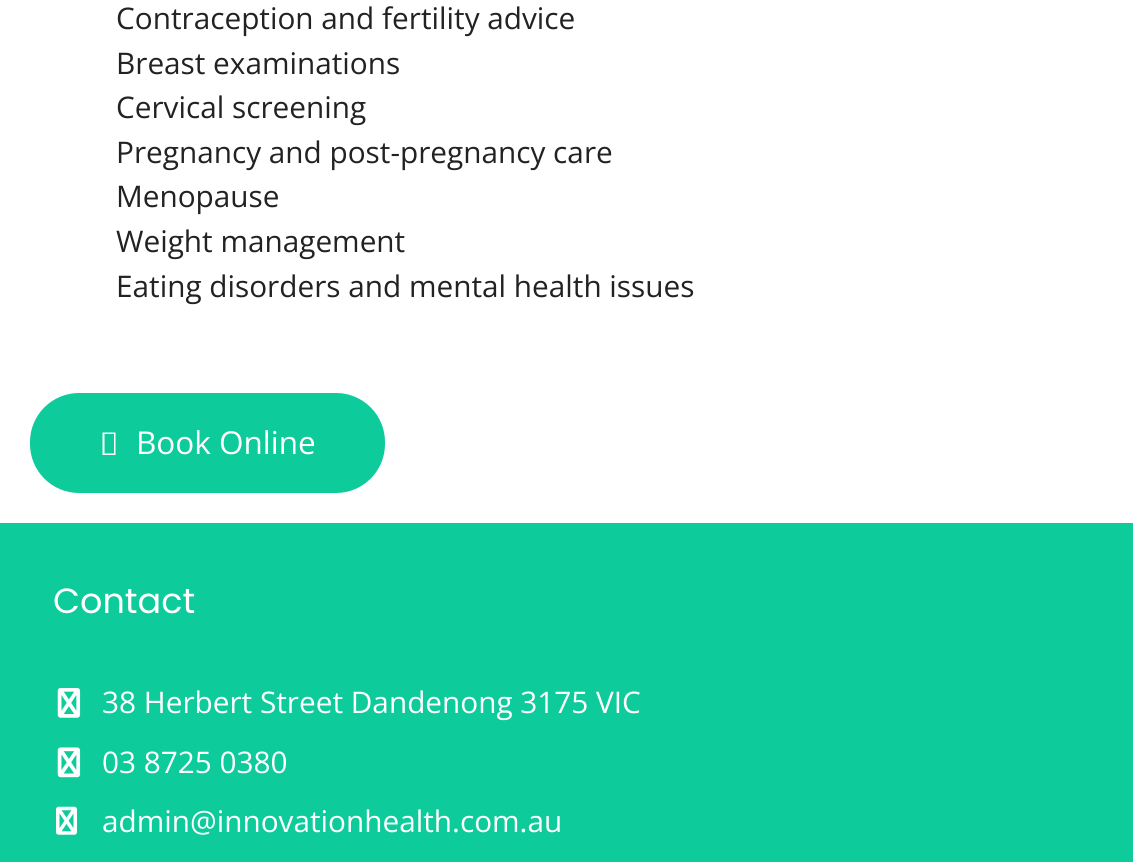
import math
import cairo

surface = cairo.ImageSurface(cairo.FORMAT_RGB24, 1133, 862)
ctx = cairo.Context(surface)
options = cairo.FontOptions()
options.set_hint_metrics(cairo.HINT_METRICS_OFF)
options.set_hint_style(cairo.HINT_STYLE_NONE)
ctx.set_font_options(options)
ctx.set_miter_limit(4)


def set_color(code):
    ctx.set_source_rgb(*(v / 255 for v in bytes.fromhex(code[-6:])))


def draw_text(x, y, s, family, size, color, bold=False, italic=False):
    ctx.select_font_face(family, cairo.FONT_SLANT_ITALIC if italic else cairo.FONT_SLANT_NORMAL, cairo.FONT_WEIGHT_BOLD if bold else cairo.FONT_WEIGHT_NORMAL)
    ctx.set_font_size(size)
    set_color(color)
    ctx.move_to(x, y)
    ctx.show_text(s)


def fill_rect(x, y, w, h, color):
    set_color(color)
    ctx.rectangle(x, y, w, h)
    ctx.fill()


def rounded_rect(x, y, w, h, r):
    ctx.new_sub_path()
    for i, (u, v) in enumerate([(x + w - r, y + h - r), (x + r, y + h - r), (x + r, y + r), (x + w - r, y + r)]):
        ctx.arc(u, v, r, i * math.pi / 2, (i + 1) * math.pi / 2)
    ctx.close_path()


def draw_image(path, x, y, w, h):
    ctx.save()
    ctx.set_source_surface(cairo.ImageSurface.create_from_png(path), x, y)
    ctx.rectangle(x, y, w, h)
    ctx.fill()
    ctx.restore()


set_color("#ffffff")
ctx.paint()
draw_text(116, 29, "Contraception and fertility advice", "Open Sans", 29.75, "#222222")
draw_text(116, 74, "Breast examinations", "Open Sans", 29.75, "#222222")
draw_text(116, 118, "Cervical screening", "Open Sans", 29.75, "#222222")
draw_text(116, 163, "Pregnancy and post-pregnancy care", "Open Sans", 29.75, "#222222")
draw_text(116, 207, "Menopause", "Open Sans", 29.75, "#222222")
draw_text(116, 252, "Weight management", "Open Sans", 29.75, "#222222")
draw_text(116, 297, "Eating disorders and mental health issues", "Open Sans", 29.75, "#222222")
set_color("#0dcb9b")
rounded_rect(28, 391, 359, 104, 51)
ctx.fill_preserve()
set_color("#ffffff")
ctx.set_line_width(4)
ctx.stroke()
ctx.new_path()
ctx.move_to(102.5, 455)
ctx.line_to(102.5, 432.5)
ctx.line_to(115.5, 432.5)
ctx.line_to(115.5, 455)
ctx.close_path()
ctx.move_to(104.5, 453.5)
ctx.line_to(114, 453.5)
ctx.line_to(114, 434)
ctx.line_to(104.5, 434)
ctx.close_path()
ctx.fill()
draw_text(136, 454, "Book Online", "Open Sans", 31.5, "#ffffff")
fill_rect(0, 523, 1133, 339, "#0dcb9b")
draw_text(53, 613, "Contact", "Poppins", 35, "#ffffff")
draw_image("assets/img1.png", 57, 688, 24, 30)
draw_text(102, 713, "38 Herbert Street Dandenong 3175 VIC", "Open Sans", 29.75, "#ffffff")
draw_image("assets/img2.png", 57, 747, 24, 31)
draw_text(102, 773, "03 8725 0380", "Open Sans", 29.75, "#ffffff")
draw_image("assets/img3.png", 56, 806, 21, 29)
draw_text(102, 832, "admin@innovationhealth.com.au", "Open Sans", 29.75, "#ffffff")
surface.write_to_png("output.png")
